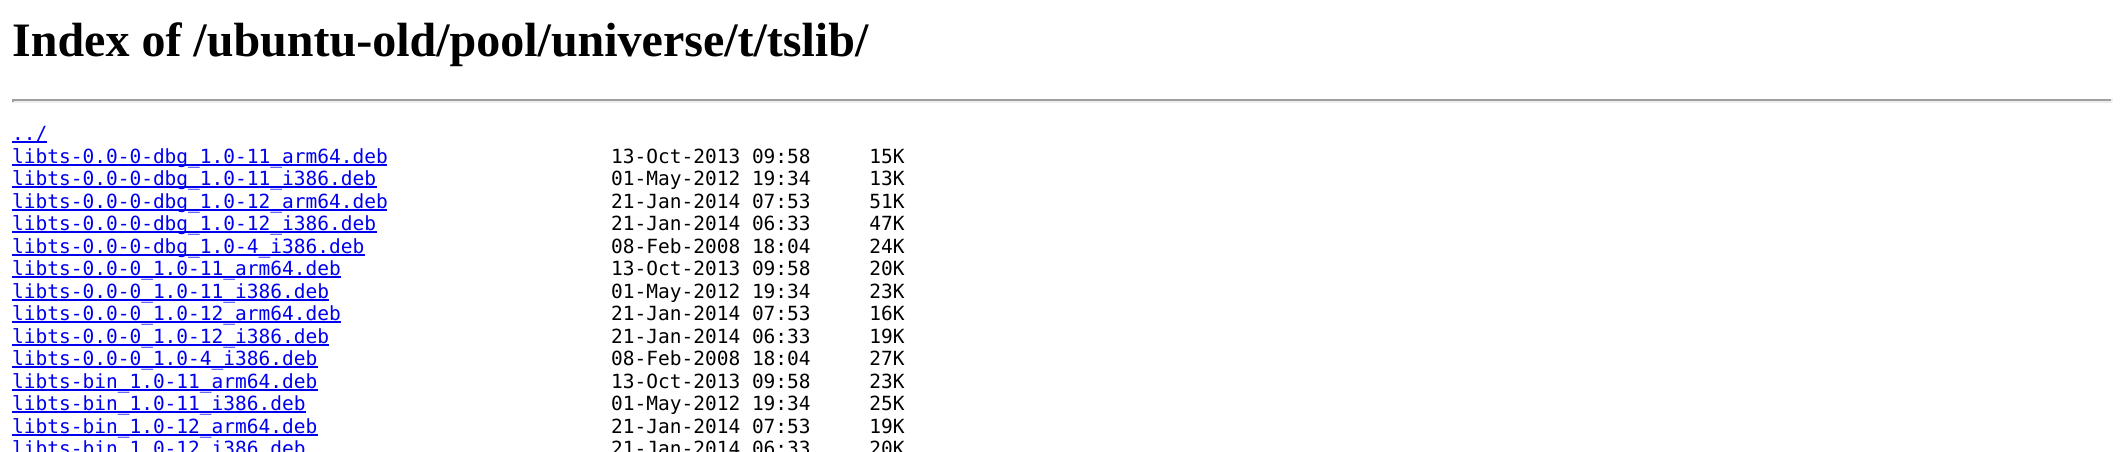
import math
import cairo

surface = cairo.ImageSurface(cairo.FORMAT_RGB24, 2123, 452)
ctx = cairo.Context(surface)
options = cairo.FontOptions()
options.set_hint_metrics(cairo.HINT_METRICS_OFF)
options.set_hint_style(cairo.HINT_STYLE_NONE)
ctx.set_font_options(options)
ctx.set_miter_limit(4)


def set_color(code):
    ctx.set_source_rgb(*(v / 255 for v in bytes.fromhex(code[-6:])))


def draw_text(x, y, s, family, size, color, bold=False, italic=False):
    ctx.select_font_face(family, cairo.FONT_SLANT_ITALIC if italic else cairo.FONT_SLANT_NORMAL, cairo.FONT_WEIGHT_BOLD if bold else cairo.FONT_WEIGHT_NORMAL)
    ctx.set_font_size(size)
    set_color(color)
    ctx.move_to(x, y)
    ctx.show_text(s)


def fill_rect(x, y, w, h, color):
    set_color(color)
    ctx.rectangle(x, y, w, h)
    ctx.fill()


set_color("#ffffff")
ctx.paint()
draw_text(12, 56, "Index of /ubuntu-old/pool/universe/t/tslib/", "Liberation Serif", 48, "#000000", bold=True)
fill_rect(12, 99, 2100, 2, "#9f9f9f")
fill_rect(2111, 99, 2, 3, "#eeeeee")
fill_rect(12, 101, 2100, 2, "#eeeeee")
fill_rect(12, 99, 2, 3, "#9f9f9f")
fill_rect(12, 141, 35, 2, "#0000ee")
draw_text(12, 140, "../", "DejaVu Sans Mono", 19.5, "#0000ee")
fill_rect(12, 164, 375, 2, "#0000ee")
draw_text(12, 163, "libts-0.0-0-dbg_1.0-11_arm64.deb", "DejaVu Sans Mono", 19.5, "#0000ee")
draw_text(611, 163, "13-Oct-2013 09:58     15K", "DejaVu Sans Mono", 19.5, "#000000")
fill_rect(12, 186, 365, 2, "#0000ee")
draw_text(12, 185, "libts-0.0-0-dbg_1.0-11_i386.deb", "DejaVu Sans Mono", 19.5, "#0000ee")
draw_text(611, 185, "01-May-2012 19:34     13K", "DejaVu Sans Mono", 19.5, "#000000")
fill_rect(12, 209, 375, 2, "#0000ee")
draw_text(12, 208, "libts-0.0-0-dbg_1.0-12_arm64.deb", "DejaVu Sans Mono", 19.5, "#0000ee")
draw_text(611, 208, "21-Jan-2014 07:53     51K", "DejaVu Sans Mono", 19.5, "#000000")
fill_rect(12, 231, 365, 2, "#0000ee")
draw_text(12, 230, "libts-0.0-0-dbg_1.0-12_i386.deb", "DejaVu Sans Mono", 19.5, "#0000ee")
draw_text(611, 230, "21-Jan-2014 06:33     47K", "DejaVu Sans Mono", 19.5, "#000000")
fill_rect(12, 254, 353, 2, "#0000ee")
draw_text(12, 253, "libts-0.0-0-dbg_1.0-4_i386.deb", "DejaVu Sans Mono", 19.5, "#0000ee")
draw_text(611, 253, "08-Feb-2008 18:04     24K", "DejaVu Sans Mono", 19.5, "#000000")
fill_rect(12, 276, 329, 2, "#0000ee")
draw_text(12, 275, "libts-0.0-0_1.0-11_arm64.deb", "DejaVu Sans Mono", 19.5, "#0000ee")
draw_text(611, 275, "13-Oct-2013 09:58     20K", "DejaVu Sans Mono", 19.5, "#000000")
fill_rect(12, 299, 317, 2, "#0000ee")
draw_text(12, 298, "libts-0.0-0_1.0-11_i386.deb", "DejaVu Sans Mono", 19.5, "#0000ee")
draw_text(611, 298, "01-May-2012 19:34     23K", "DejaVu Sans Mono", 19.5, "#000000")
fill_rect(12, 321, 329, 2, "#0000ee")
draw_text(12, 320, "libts-0.0-0_1.0-12_arm64.deb", "DejaVu Sans Mono", 19.5, "#0000ee")
draw_text(611, 320, "21-Jan-2014 07:53     16K", "DejaVu Sans Mono", 19.5, "#000000")
fill_rect(12, 344, 317, 2, "#0000ee")
draw_text(12, 343, "libts-0.0-0_1.0-12_i386.deb", "DejaVu Sans Mono", 19.5, "#0000ee")
draw_text(611, 343, "21-Jan-2014 06:33     19K", "DejaVu Sans Mono", 19.5, "#000000")
fill_rect(12, 366, 306, 2, "#0000ee")
draw_text(12, 365, "libts-0.0-0_1.0-4_i386.deb", "DejaVu Sans Mono", 19.5, "#0000ee")
draw_text(611, 365, "08-Feb-2008 18:04     27K", "DejaVu Sans Mono", 19.5, "#000000")
fill_rect(12, 389, 306, 2, "#0000ee")
draw_text(12, 388, "libts-bin_1.0-11_arm64.deb", "DejaVu Sans Mono", 19.5, "#0000ee")
draw_text(611, 388, "13-Oct-2013 09:58     23K", "DejaVu Sans Mono", 19.5, "#000000")
fill_rect(12, 411, 294, 2, "#0000ee")
draw_text(12, 410, "libts-bin_1.0-11_i386.deb", "DejaVu Sans Mono", 19.5, "#0000ee")
draw_text(611, 410, "01-May-2012 19:34     25K", "DejaVu Sans Mono", 19.5, "#000000")
fill_rect(12, 434, 306, 2, "#0000ee")
draw_text(12, 433, "libts-bin_1.0-12_arm64.deb", "DejaVu Sans Mono", 19.5, "#0000ee")
draw_text(611, 433, "21-Jan-2014 07:53     19K", "DejaVu Sans Mono", 19.5, "#000000")
draw_text(12, 455, "libts-bin_1.0-12_i386.deb", "DejaVu Sans Mono", 19.5, "#0000ee")
draw_text(611, 455, "21-Jan-2014 06:33     20K", "DejaVu Sans Mono", 19.5, "#000000")
surface.write_to_png("output.png")
